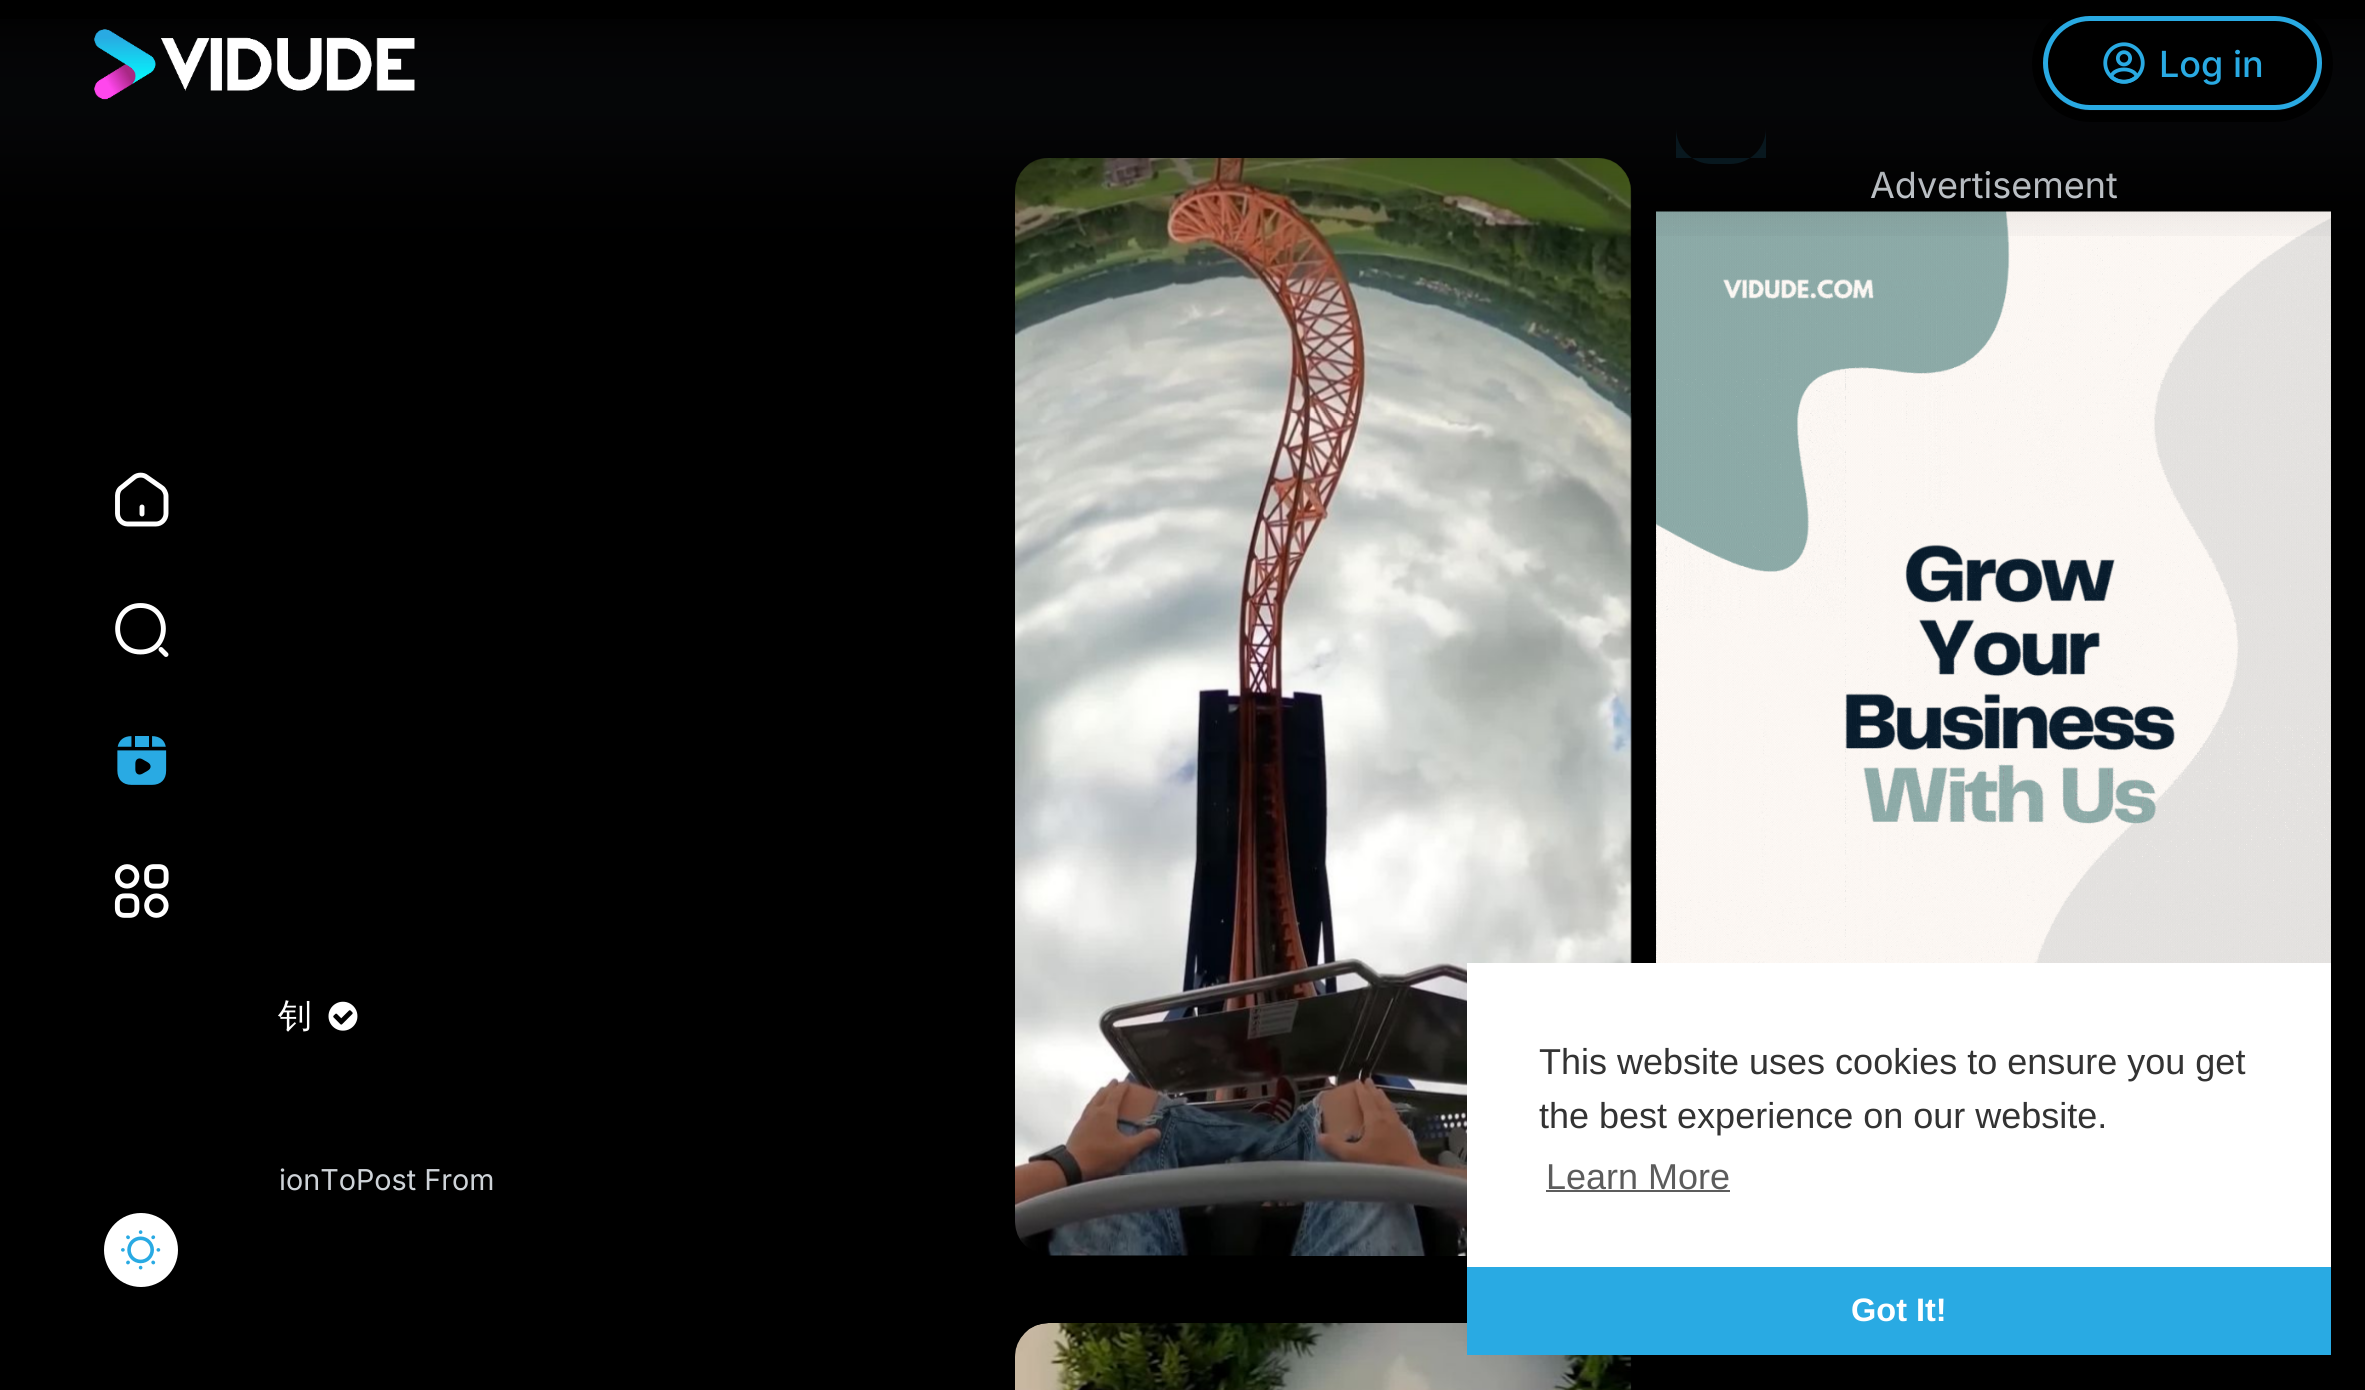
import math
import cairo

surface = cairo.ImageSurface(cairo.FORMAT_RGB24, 2365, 1390)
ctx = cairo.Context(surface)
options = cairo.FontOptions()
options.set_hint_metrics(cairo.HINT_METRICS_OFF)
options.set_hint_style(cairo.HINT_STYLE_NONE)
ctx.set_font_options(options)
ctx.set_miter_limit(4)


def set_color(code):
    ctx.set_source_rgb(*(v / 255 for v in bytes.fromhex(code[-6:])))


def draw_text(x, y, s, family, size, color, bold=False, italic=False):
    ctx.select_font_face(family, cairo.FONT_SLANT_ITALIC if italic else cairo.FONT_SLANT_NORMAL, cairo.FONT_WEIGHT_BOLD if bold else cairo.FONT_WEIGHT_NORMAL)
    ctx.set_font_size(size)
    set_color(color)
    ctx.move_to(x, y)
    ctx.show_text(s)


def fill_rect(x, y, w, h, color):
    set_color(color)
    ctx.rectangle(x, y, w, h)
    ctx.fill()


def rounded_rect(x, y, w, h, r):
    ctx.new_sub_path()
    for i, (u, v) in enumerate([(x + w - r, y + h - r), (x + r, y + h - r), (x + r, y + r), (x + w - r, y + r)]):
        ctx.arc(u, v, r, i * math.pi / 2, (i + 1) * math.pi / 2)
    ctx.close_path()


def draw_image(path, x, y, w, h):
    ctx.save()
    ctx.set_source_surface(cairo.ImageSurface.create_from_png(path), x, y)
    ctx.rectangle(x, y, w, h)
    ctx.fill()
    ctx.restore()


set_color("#000000")
ctx.paint()
draw_text(1870, 198, "Advertisement", "Inter", 36, "#ced3d8")
draw_image("assets/img6.png", 1656, 211, 675, 752)
set_color("#061a22")
ctx.new_path()
ctx.move_to(1676, 158)
ctx.line_to(1766, 158)
ctx.line_to(1766, 128)
ctx.curve_to(1766, 148, 1750, 164, 1730, 164)
ctx.line_to(1712, 164)
ctx.curve_to(1692, 164, 1676, 148, 1676, 128)
ctx.close_path()
ctx.fill()
draw_image("assets/img8.png", 1015, 158, 617, 1098)
gradient = cairo.LinearGradient(1184, 0, 1184, 270)
gradient.add_color_stop_rgba(0, 0, 0, 0, 1)
gradient.add_color_stop_rgba(0.5, 0.059, 0.063, 0.078, 0.3)
gradient.add_color_stop_rgba(0.65, 0.059, 0.063, 0.078, 0.15)
gradient.add_color_stop_rgba(0.75, 0.059, 0.063, 0.078, 0.07)
gradient.add_color_stop_rgba(0.82, 0.059, 0.063, 0.078, 0.04)
gradient.add_color_stop_rgba(0.88, 0.059, 0.063, 0.078, 0.02)
gradient.add_color_stop_rgba(1, 0.059, 0.063, 0.078, 0)
ctx.set_source(gradient)
ctx.rectangle(0, 19, 2365, 217)
ctx.fill()
draw_image("assets/img1.png", 94, 29, 321, 71)
rounded_rect(2037.5, 10.5, 290, 106, 53)
set_color("#000000")
ctx.set_line_width(11)
ctx.stroke()
rounded_rect(2045.5, 18.5, 274, 89, 44.5)
ctx.fill_preserve()
set_color("#29aae3")
ctx.set_line_width(5)
ctx.stroke()
draw_image("assets/img2.png", 2103, 42, 42, 42)
draw_text(2159, 77, "Log in", "Inter Medium", 36, "#29aae3")
ctx.new_path()
ctx.move_to(134.5, 477)
ctx.line_to(121.5, 487.5)
ctx.curve_to(119, 489, 117.5, 492.5, 117.5, 495.5)
ctx.line_to(117.5, 513.5)
ctx.curve_to(117.5, 519, 122, 524, 127.5, 524)
ctx.line_to(156, 524)
ctx.curve_to(161.5, 524, 166, 519, 166, 513.5)
ctx.line_to(166, 496)
ctx.curve_to(166, 493, 164, 489, 161.5, 487.5)
ctx.line_to(146.5, 477)
ctx.curve_to(143.5, 474.5, 138, 474.5, 134.5, 477)
ctx.close_path()
ctx.move_to(142, 514)
ctx.line_to(142, 507)
set_color("#ffffff")
ctx.set_line_width(4.9)
ctx.set_line_cap(cairo.LINE_CAP_ROUND)
ctx.set_line_join(cairo.LINE_JOIN_ROUND)
ctx.stroke()
ctx.new_path()
ctx.move_to(140.5, 652)
ctx.curve_to(171, 652, 171, 605.5, 140.5, 605.5)
ctx.curve_to(110, 605.5, 110, 652, 140.5, 652)
ctx.close_path()
ctx.move_to(166, 654.5)
ctx.line_to(161, 649.5)
ctx.stroke()
draw_image("assets/img3.png", 117, 736, 50, 49)
draw_image("assets/img4.png", 114, 864, 55, 54)
ctx.arc(141, 1250, 37, 0, 2 * math.pi)
ctx.fill()
draw_image("assets/img5.png", 121, 1230, 40, 40)
draw_text(278, 1027, "钊", "WenQuanYi Zen Hei Medium", 34, "#ffffff")
draw_image("assets/img7.png", 328, 1001, 30, 30)
draw_text(279, 1190, "ionToPost From", "Inter", 28.75, "#ced3d8")
draw_image("assets/img9.png", 1015, 1323, 617, 67)
fill_rect(1467, 963, 864, 304, "#ffffff")
draw_text(1539, 1074, "This website uses cookies to ensure you get", "Liberation Sans", 36, "#333333")
draw_text(1539, 1128, "the best experience on our website.", "Liberation Sans", 36, "#333333")
draw_text(1546, 1189, "Learn More", "Liberation Sans", 36, "#5c5c5c")
fill_rect(1546, 1190, 184, 2, "#5c5c5c")
fill_rect(1467, 1267, 864, 88, "#29aae3")
draw_text(1851, 1321, "Got It!", "Liberation Sans", 32.5, "#ffffff", bold=True)
surface.write_to_png("output.png")
